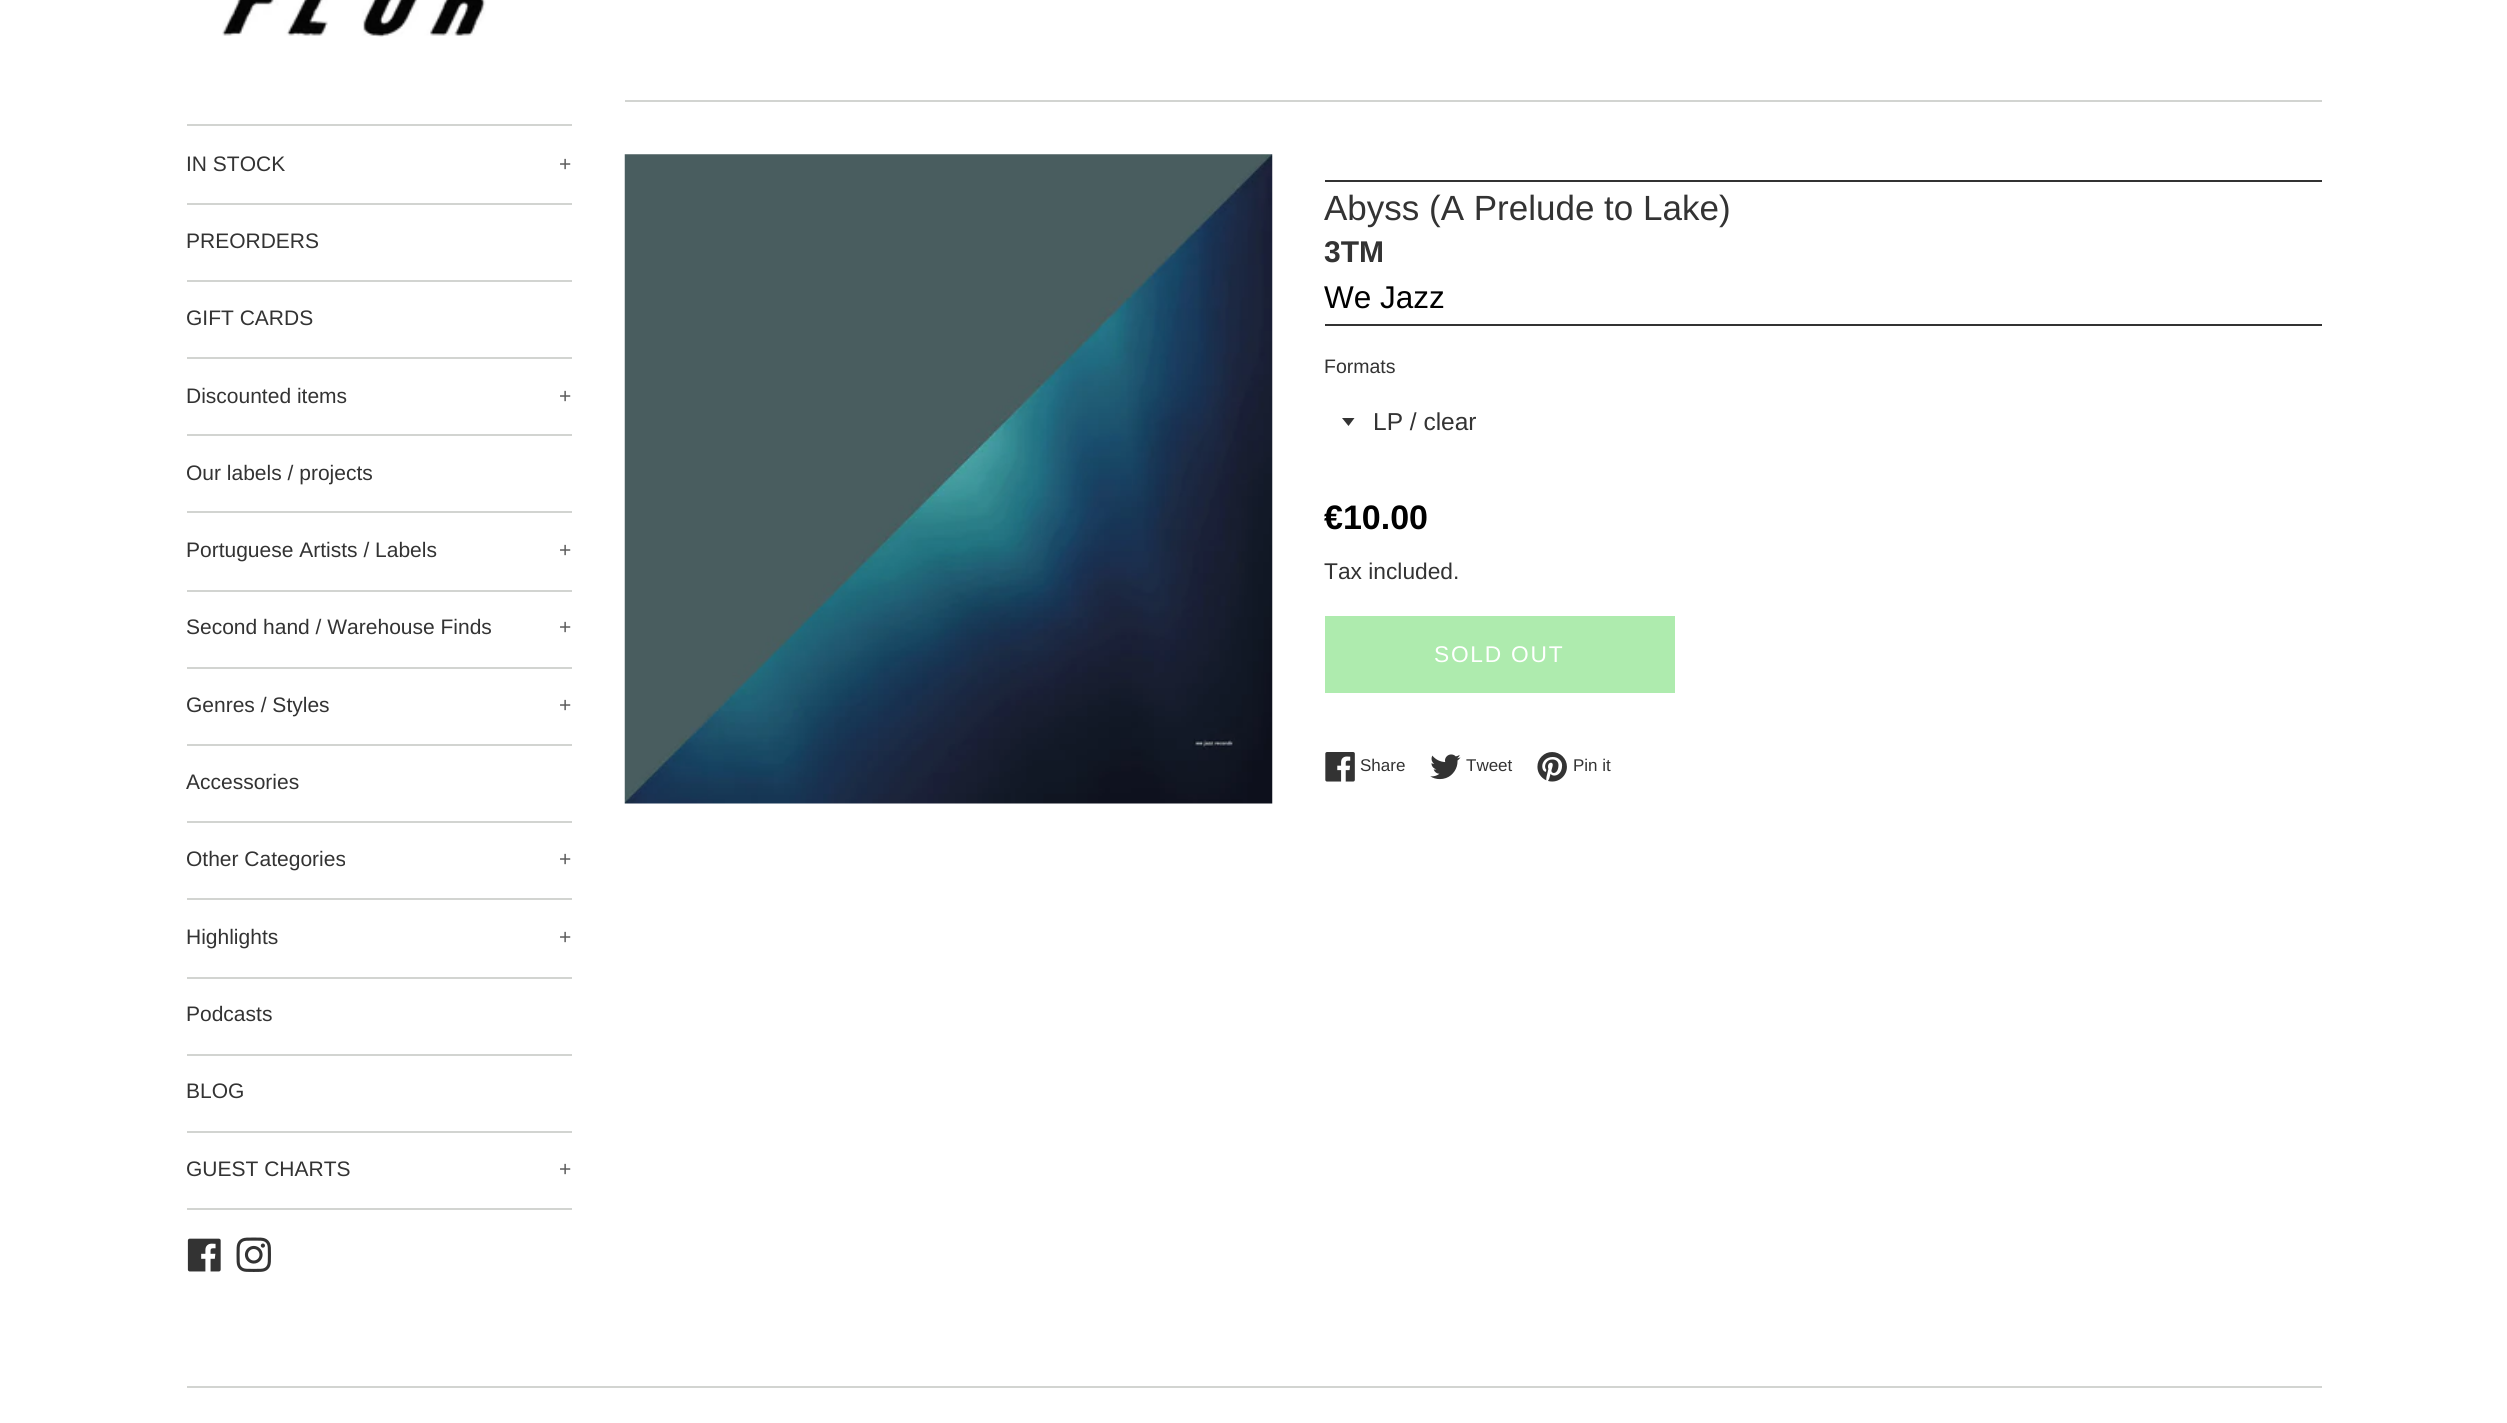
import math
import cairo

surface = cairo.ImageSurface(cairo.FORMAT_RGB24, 2507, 1423)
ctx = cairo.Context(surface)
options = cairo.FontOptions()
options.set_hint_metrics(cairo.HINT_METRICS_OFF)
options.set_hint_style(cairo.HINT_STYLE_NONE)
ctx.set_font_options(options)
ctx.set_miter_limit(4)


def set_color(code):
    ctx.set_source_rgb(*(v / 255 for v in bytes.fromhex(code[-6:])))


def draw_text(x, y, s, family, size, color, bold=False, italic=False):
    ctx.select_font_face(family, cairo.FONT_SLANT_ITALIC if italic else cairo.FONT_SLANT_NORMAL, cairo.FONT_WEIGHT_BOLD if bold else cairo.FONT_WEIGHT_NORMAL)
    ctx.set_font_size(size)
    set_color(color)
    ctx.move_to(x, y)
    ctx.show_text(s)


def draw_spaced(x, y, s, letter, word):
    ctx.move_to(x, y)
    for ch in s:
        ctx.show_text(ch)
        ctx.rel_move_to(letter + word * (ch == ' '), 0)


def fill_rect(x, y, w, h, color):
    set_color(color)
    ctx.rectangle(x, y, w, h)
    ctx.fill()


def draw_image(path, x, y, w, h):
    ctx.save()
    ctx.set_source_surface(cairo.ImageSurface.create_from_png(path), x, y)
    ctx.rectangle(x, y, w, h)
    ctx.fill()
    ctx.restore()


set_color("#ffffff")
ctx.paint()
draw_image("assets/img1.png", 222, 0, 264, 37)
fill_rect(187, 124, 385, 2, "#d2d4d1")
fill_rect(187, 203, 385, 2, "#d2d4d1")
draw_text(186, 171, "IN STOCK", "Liberation Sans", 21, "#333333")
draw_text(559, 171, "+", "Liberation Sans", 21, "#5c5c5c")
fill_rect(187, 280, 385, 2, "#d2d4d1")
draw_text(186, 248, "PREORDERS", "Liberation Sans", 21, "#333333")
fill_rect(187, 357, 385, 2, "#d2d4d1")
draw_text(186, 325, "GIFT CARDS", "Liberation Sans", 21, "#333333")
fill_rect(187, 434, 385, 2, "#d2d4d1")
draw_text(186, 403, "Discounted items", "Liberation Sans", 21, "#333333")
draw_text(559, 403, "+", "Liberation Sans", 21, "#5c5c5c")
fill_rect(187, 511, 385, 2, "#d2d4d1")
draw_text(186, 480, "Our labels / projects", "Liberation Sans", 21, "#333333")
fill_rect(187, 590, 385, 2, "#d2d4d1")
draw_text(186, 557, "Portuguese Artists / Labels", "Liberation Sans", 21, "#333333")
draw_text(559, 557, "+", "Liberation Sans", 21, "#5c5c5c")
fill_rect(187, 667, 385, 2, "#d2d4d1")
draw_text(186, 634, "Second hand / Warehouse Finds", "Liberation Sans", 21, "#333333")
draw_text(559, 634, "+", "Liberation Sans", 21, "#5c5c5c")
fill_rect(187, 744, 385, 2, "#d2d4d1")
draw_text(186, 712, "Genres / Styles", "Liberation Sans", 21, "#333333")
draw_text(559, 712, "+", "Liberation Sans", 21, "#5c5c5c")
fill_rect(187, 821, 385, 2, "#d2d4d1")
draw_text(186, 789, "Accessories", "Liberation Sans", 21, "#333333")
fill_rect(187, 898, 385, 2, "#d2d4d1")
draw_text(186, 866, "Other Categories", "Liberation Sans", 21, "#333333")
draw_text(559, 866, "+", "Liberation Sans", 21, "#5c5c5c")
fill_rect(187, 977, 385, 2, "#d2d4d1")
draw_text(186, 944, "Highlights", "Liberation Sans", 21, "#333333")
draw_text(559, 944, "+", "Liberation Sans", 21, "#5c5c5c")
fill_rect(187, 1054, 385, 2, "#d2d4d1")
draw_text(186, 1021, "Podcasts", "Liberation Sans", 21, "#333333")
fill_rect(187, 1131, 385, 2, "#d2d4d1")
draw_text(186, 1098, "BLOG", "Liberation Sans", 21, "#333333")
fill_rect(187, 1208, 385, 2, "#d2d4d1")
draw_text(186, 1176, "GUEST CHARTS", "Liberation Sans", 21, "#333333")
draw_text(559, 1176, "+", "Liberation Sans", 21, "#5c5c5c")
draw_image("assets/img2.png", 187, 1238, 34, 34)
draw_image("assets/img3.png", 236, 1237, 35, 35)
fill_rect(625, 100, 1697, 2, "#d2d4d1")
draw_image("assets/img4.png", 624, 154, 649, 650)
fill_rect(1325, 180, 997, 2, "#333333")
draw_text(1324, 220, "Abyss (A Prelude to Lake)", "Liberation Sans", 35, "#333333")
draw_text(1324, 262, "3TM", "Liberation Sans", 30, "#333333", bold=True)
fill_rect(1325, 324, 997, 2, "#333333")
draw_text(1324, 308, "We Jazz", "Liberation Sans", 31.5, "#000000")
draw_text(1324, 373, "Formats", "Liberation Sans", 19.5, "#333333")
ctx.new_path()
ctx.move_to(1342, 418)
ctx.line_to(1348.5, 426)
ctx.line_to(1354.5, 418)
ctx.close_path()
ctx.fill()
draw_text(1373, 430, "LP / clear", "Liberation Sans", 24.5, "#333333")
draw_text(1324, 529, "€10.00", "Liberation Sans", 34, "#000000", bold=True)
draw_text(1324, 579, "Tax included.", "Liberation Sans", 22.75, "#333333")
fill_rect(1325, 616, 350, 77, "#aeebae")
set_color("#ffffff")
draw_spaced(1434, 662, "SOLD OUT", 1.75, 0)
draw_image("assets/img5.png", 1325, 752, 30, 30)
draw_text(1360, 771, "Share", "Liberation Sans", 17, "#333333")
draw_image("assets/img6.png", 1430, 754, 31, 26)
draw_text(1466, 771, "Tweet", "Liberation Sans", 17, "#333333")
draw_image("assets/img7.png", 1537, 752, 30, 30)
draw_text(1573, 771, "Pin it", "Liberation Sans", 17, "#333333")
fill_rect(187, 1386, 2135, 2, "#d2d4d1")
surface.write_to_png("output.png")
